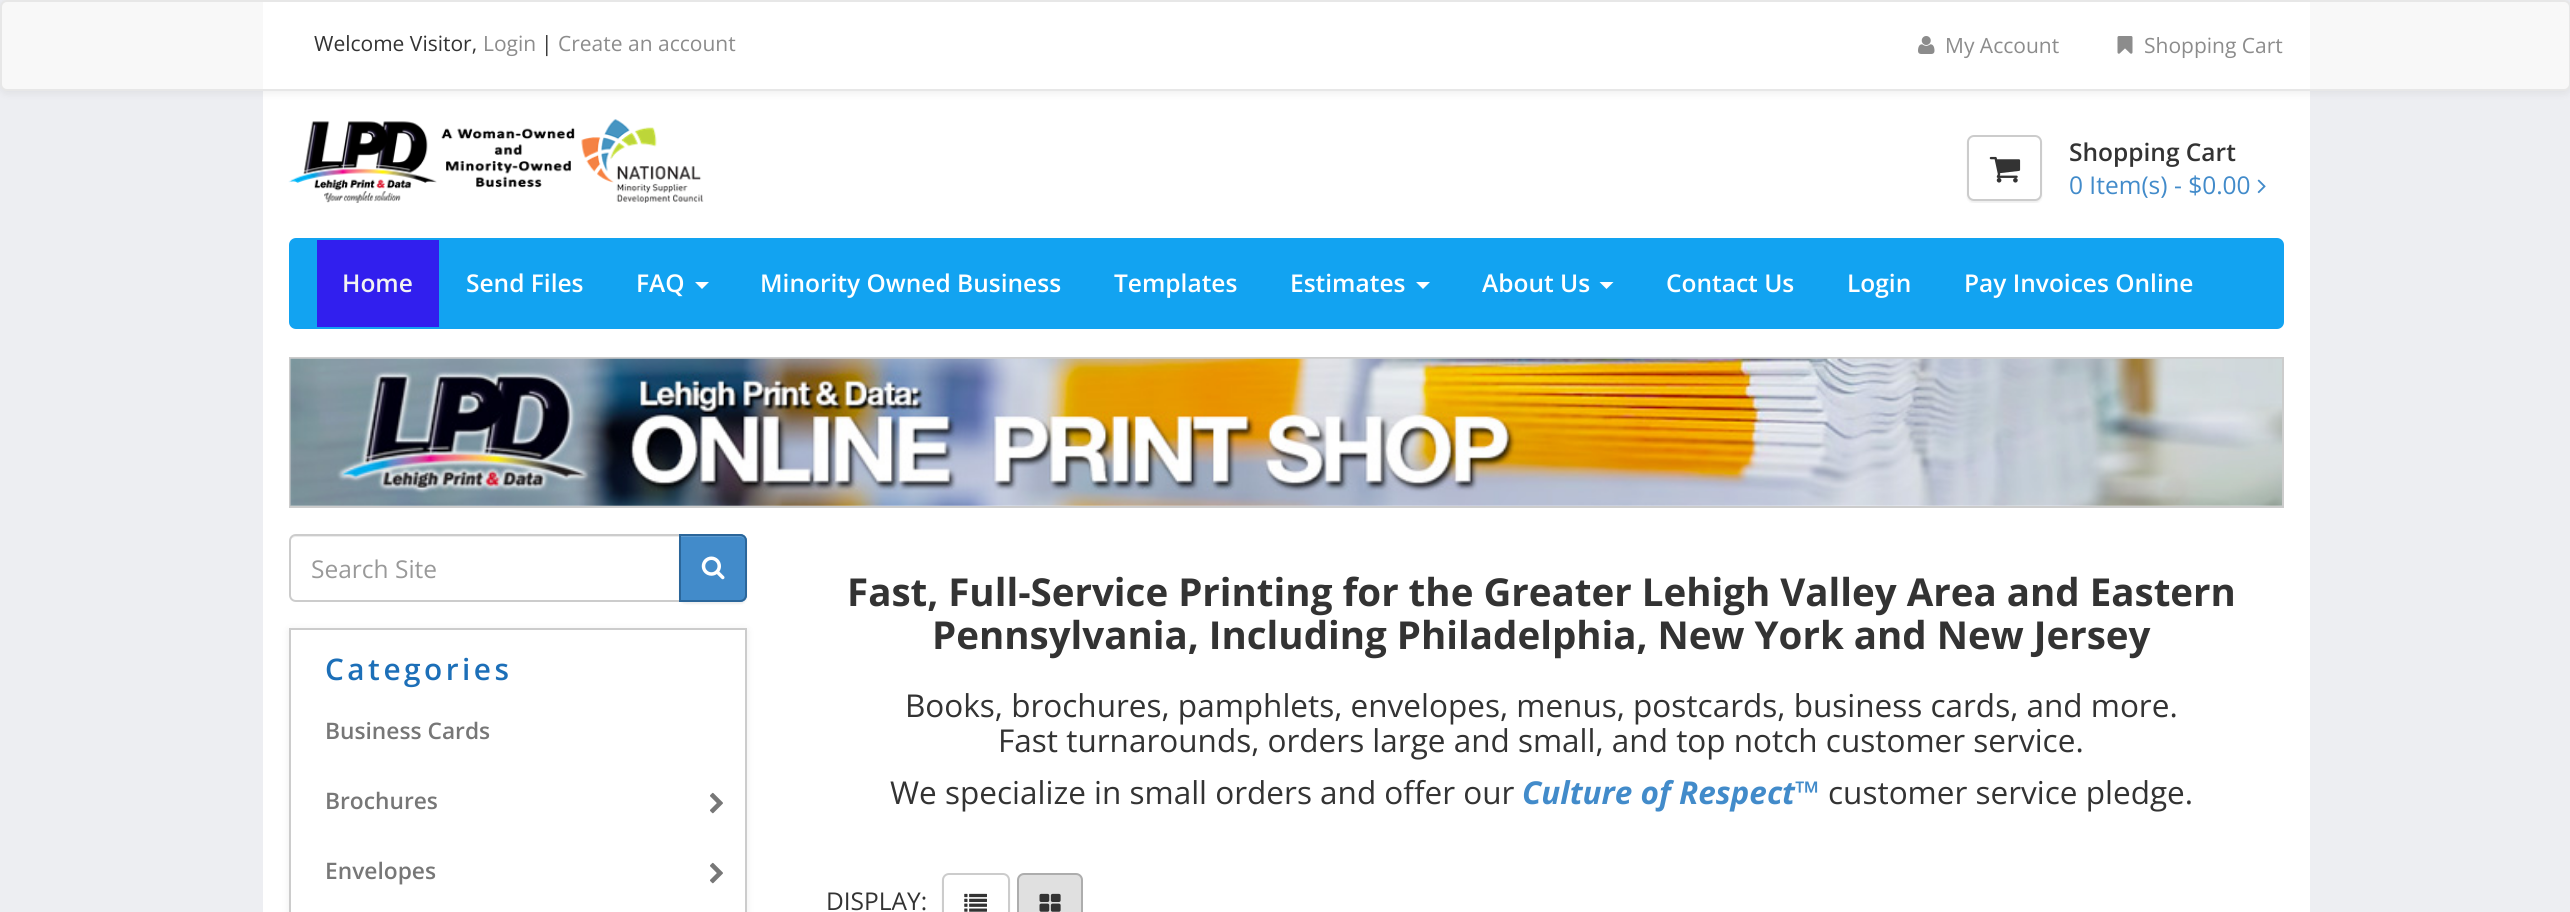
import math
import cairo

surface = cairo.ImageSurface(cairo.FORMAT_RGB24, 2570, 912)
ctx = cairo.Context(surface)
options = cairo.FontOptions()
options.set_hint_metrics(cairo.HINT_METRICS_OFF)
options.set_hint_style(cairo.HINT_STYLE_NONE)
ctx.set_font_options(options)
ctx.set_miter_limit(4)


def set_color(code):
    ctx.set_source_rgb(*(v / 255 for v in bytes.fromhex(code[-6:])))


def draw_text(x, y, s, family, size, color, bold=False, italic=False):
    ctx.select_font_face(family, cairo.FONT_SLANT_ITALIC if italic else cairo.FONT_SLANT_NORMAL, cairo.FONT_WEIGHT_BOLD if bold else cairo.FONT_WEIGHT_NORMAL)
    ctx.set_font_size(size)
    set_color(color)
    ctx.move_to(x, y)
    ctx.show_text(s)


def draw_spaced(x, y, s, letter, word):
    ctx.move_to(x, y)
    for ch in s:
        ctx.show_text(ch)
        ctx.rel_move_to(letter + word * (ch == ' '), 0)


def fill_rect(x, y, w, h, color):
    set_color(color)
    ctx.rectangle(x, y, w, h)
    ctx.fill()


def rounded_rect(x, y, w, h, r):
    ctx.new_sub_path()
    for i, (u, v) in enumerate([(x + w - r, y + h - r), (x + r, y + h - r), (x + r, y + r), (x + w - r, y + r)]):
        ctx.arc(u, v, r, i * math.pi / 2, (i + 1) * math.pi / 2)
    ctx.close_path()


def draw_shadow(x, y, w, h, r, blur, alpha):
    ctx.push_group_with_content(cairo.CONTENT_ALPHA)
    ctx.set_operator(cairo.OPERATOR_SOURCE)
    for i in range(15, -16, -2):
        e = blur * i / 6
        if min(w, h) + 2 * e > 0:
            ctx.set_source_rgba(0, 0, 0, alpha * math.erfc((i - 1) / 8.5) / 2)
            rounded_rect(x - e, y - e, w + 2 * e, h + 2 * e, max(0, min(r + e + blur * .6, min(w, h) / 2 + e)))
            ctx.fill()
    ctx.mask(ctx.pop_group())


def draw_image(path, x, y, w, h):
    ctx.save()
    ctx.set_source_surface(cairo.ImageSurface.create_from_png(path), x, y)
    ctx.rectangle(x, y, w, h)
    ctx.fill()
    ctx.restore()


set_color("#edeef2")
ctx.paint()
fill_rect(263, 91, 2047, 112, "#ffffff")
set_color("#000000")
draw_shadow(0, 2, 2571, 91, 7, 4.5, 0.07)
set_color("#f8f8f8")
rounded_rect(1, 1, 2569, 89, 6)
ctx.fill_preserve()
set_color("#e7e7e7")
ctx.stroke()
fill_rect(263, 2, 2047, 87, "#ffffff")
draw_text(314, 51, "Welcome Visitor,", "Open Sans", 21, "#333333")
draw_text(483, 51, "Login", "Open Sans", 21, "#8c8c8c")
draw_text(541, 51, "|", "Open Sans", 21, "#333333")
draw_text(558, 51, "Create an account", "Open Sans", 21, "#8c8c8c")
draw_image("assets/img1.png", 1918, 36, 17, 18)
draw_text(1945, 53, "My Account", "Open Sans", 21, "#8c8c8c")
draw_image("assets/img2.png", 2117, 36, 16, 18)
draw_text(2144, 53, "Shopping Cart", "Open Sans", 21, "#8c8c8c")
draw_image("assets/img3.png", 288, 119, 416, 84)
set_color("#000000")
draw_shadow(1967, 137, 75, 66, 7, 1, 0.07)
set_color("#ffffff")
rounded_rect(1968, 136, 73, 64, 6)
ctx.fill_preserve()
set_color("#cccccc")
ctx.stroke()
draw_image("assets/img4.png", 1989, 156, 32, 27)
draw_text(2069, 161, "Shopping Cart", "Open Sans SemiBold", 24.5, "#333333")
draw_text(2069, 194, "0 Item(s) - $0.00", "Open Sans", 24.5, "#428bca")
draw_image("assets/img5.png", 2257, 179, 9, 15)
fill_rect(263, 203, 2047, 709, "#ffffff")
set_color("#12a3f1")
rounded_rect(290, 239, 1993, 89, 6)
ctx.fill_preserve()
ctx.stroke()
fill_rect(317, 240, 122, 87, "#311fee")
draw_text(342, 292, "Home", "Open Sans SemiBold", 24.5, "#f2f2f2")
draw_text(466, 292, "Send Files", "Open Sans SemiBold", 24.5, "#ffffff")
draw_text(636, 292, "FAQ", "Open Sans SemiBold", 24.5, "#ffffff")
ctx.new_path()
ctx.move_to(695, 282)
ctx.line_to(709, 282)
ctx.line_to(702, 289)
ctx.close_path()
ctx.fill()
draw_text(760, 292, "Minority Owned Business", "Open Sans SemiBold", 24.5, "#ffffff")
draw_text(1114, 292, "Templates", "Open Sans SemiBold", 24.5, "#ffffff")
draw_text(1290, 292, "Estimates", "Open Sans SemiBold", 24.5, "#ffffff")
ctx.new_path()
ctx.move_to(1416, 282)
ctx.line_to(1430, 282)
ctx.line_to(1423, 289)
ctx.close_path()
ctx.fill()
draw_text(1482, 292, "About Us", "Open Sans SemiBold", 24.5, "#ffffff")
ctx.new_path()
ctx.move_to(1599.5, 282)
ctx.line_to(1613.5, 282)
ctx.line_to(1606.5, 289)
ctx.close_path()
ctx.fill()
draw_text(1666, 292, "Contact Us", "Open Sans SemiBold", 24.5, "#ffffff")
draw_text(1847, 292, "Login", "Open Sans SemiBold", 24.5, "#ffffff")
draw_text(1964, 292, "Pay Invoices Online", "Open Sans SemiBold", 24.5, "#ffffff")
ctx.rectangle(290, 358, 1993, 149)
set_color("#cccccc")
ctx.stroke()
draw_image("assets/img6.png", 290, 358, 1992, 148)
set_color("#ececec")
ctx.new_path()
ctx.move_to(296, 537)
ctx.line_to(679, 537)
ctx.line_to(679, 536)
ctx.line_to(296, 536)
ctx.curve_to(294, 536, 292, 537, 291, 539)
ctx.curve_to(292, 538, 294, 537, 296, 537)
ctx.close_path()
ctx.fill()
ctx.new_path()
ctx.move_to(296, 535)
ctx.line_to(680, 535)
ctx.line_to(680, 601)
ctx.line_to(296, 601)
ctx.curve_to(292.5, 601, 290, 598.5, 290, 595)
ctx.line_to(290, 541)
ctx.curve_to(290, 537.5, 292.5, 535, 296, 535)
ctx.close_path()
set_color("#cccccc")
ctx.stroke()
draw_text(311, 578, "Search Site", "Open Sans", 24.5, "#999999")
set_color("#000000")
draw_shadow(679, 536, 68, 68, 7, 1, 0.07)
set_color("#428bca")
ctx.new_path()
ctx.move_to(679, 534)
ctx.line_to(740, 534)
ctx.curve_to(744, 534, 747, 537, 747, 541)
ctx.line_to(747, 595)
ctx.curve_to(747, 599, 744, 602, 740, 602)
ctx.line_to(679, 602)
ctx.close_path()
ctx.fill()
set_color("#5e9cd2")
ctx.new_path()
ctx.move_to(681, 537)
ctx.line_to(740, 537)
ctx.curve_to(743, 537, 746, 540, 746, 542)
ctx.line_to(746, 541)
ctx.curve_to(746, 538, 744, 536, 741, 536)
ctx.line_to(681, 536)
ctx.close_path()
ctx.fill()
ctx.new_path()
ctx.move_to(680, 535)
ctx.line_to(740, 535)
ctx.curve_to(743.5, 535, 746, 537.5, 746, 541)
ctx.line_to(746, 595)
ctx.curve_to(746, 598.5, 743.5, 601, 740, 601)
ctx.line_to(680, 601)
ctx.close_path()
set_color("#2b669a")
ctx.stroke()
draw_image("assets/img7.png", 701, 556, 24, 24)
set_color("#000000")
draw_shadow(289, 630, 458, 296, 0, 4.5, 0.07)
set_color("#ffffff")
ctx.rectangle(290, 629, 456, 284)
ctx.fill_preserve()
set_color("#cccccc")
ctx.stroke()
ctx.select_font_face("Open Sans SemiBold")
ctx.set_font_size(29.75)
set_color("#1c6fb8")
draw_spaced(325, 680, "Categories", 3.5, 0)
draw_text(325, 739, "Business Cards", "Open Sans SemiBold", 22.75, "#777777")
draw_text(325, 809, "Brochures", "Open Sans SemiBold", 22.75, "#777777")
draw_image("assets/img8.png", 710, 792, 13, 22)
draw_text(325, 879, "Envelopes", "Open Sans SemiBold", 22.75, "#777777")
draw_image("assets/img8.png", 710, 862, 13, 22)
draw_text(847, 606, "Fast, Full-Service Printing for the Greater Lehigh Valley Area and Eastern", "Open Sans", 38.5, "#333333", bold=True)
draw_text(932, 649, "Pennsylvania, Including Philadelphia, New York and New Jersey", "Open Sans", 38.5, "#333333", bold=True)
draw_text(905, 717, "Books, brochures, pamphlets, envelopes, menus, postcards, business cards, and more.", "Open Sans", 31.5, "#333333")
draw_text(998, 752, "Fast turnarounds, orders large and small, and top notch customer service.", "Open Sans", 31.5, "#333333")
draw_text(890, 804, "We specialize in small orders and offer our", "Open Sans", 31.5, "#333333")
draw_text(1522, 804, "Culture of Respect™", "Open Sans", 31.5, "#428bca", bold=True, italic=True)
draw_text(1828, 804, "customer service pledge.", "Open Sans", 31.5, "#333333")
draw_text(826, 910, "DISPLAY:", "Open Sans", 24.5, "#333333")
set_color("#000000")
draw_shadow(942, 875, 68, 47, 7, 1, 0.07)
set_color("#ffffff")
rounded_rect(943, 874, 66, 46, 6)
ctx.fill_preserve()
set_color("#cccccc")
ctx.stroke()
draw_image("assets/img9.png", 964, 893, 23, 19)
set_color("#e0e0e0")
rounded_rect(1018, 874, 64, 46, 6)
ctx.fill_preserve()
set_color("#adadad")
ctx.stroke()
draw_image("assets/img10.png", 1039, 893, 22, 19)
surface.write_to_png("output.png")
